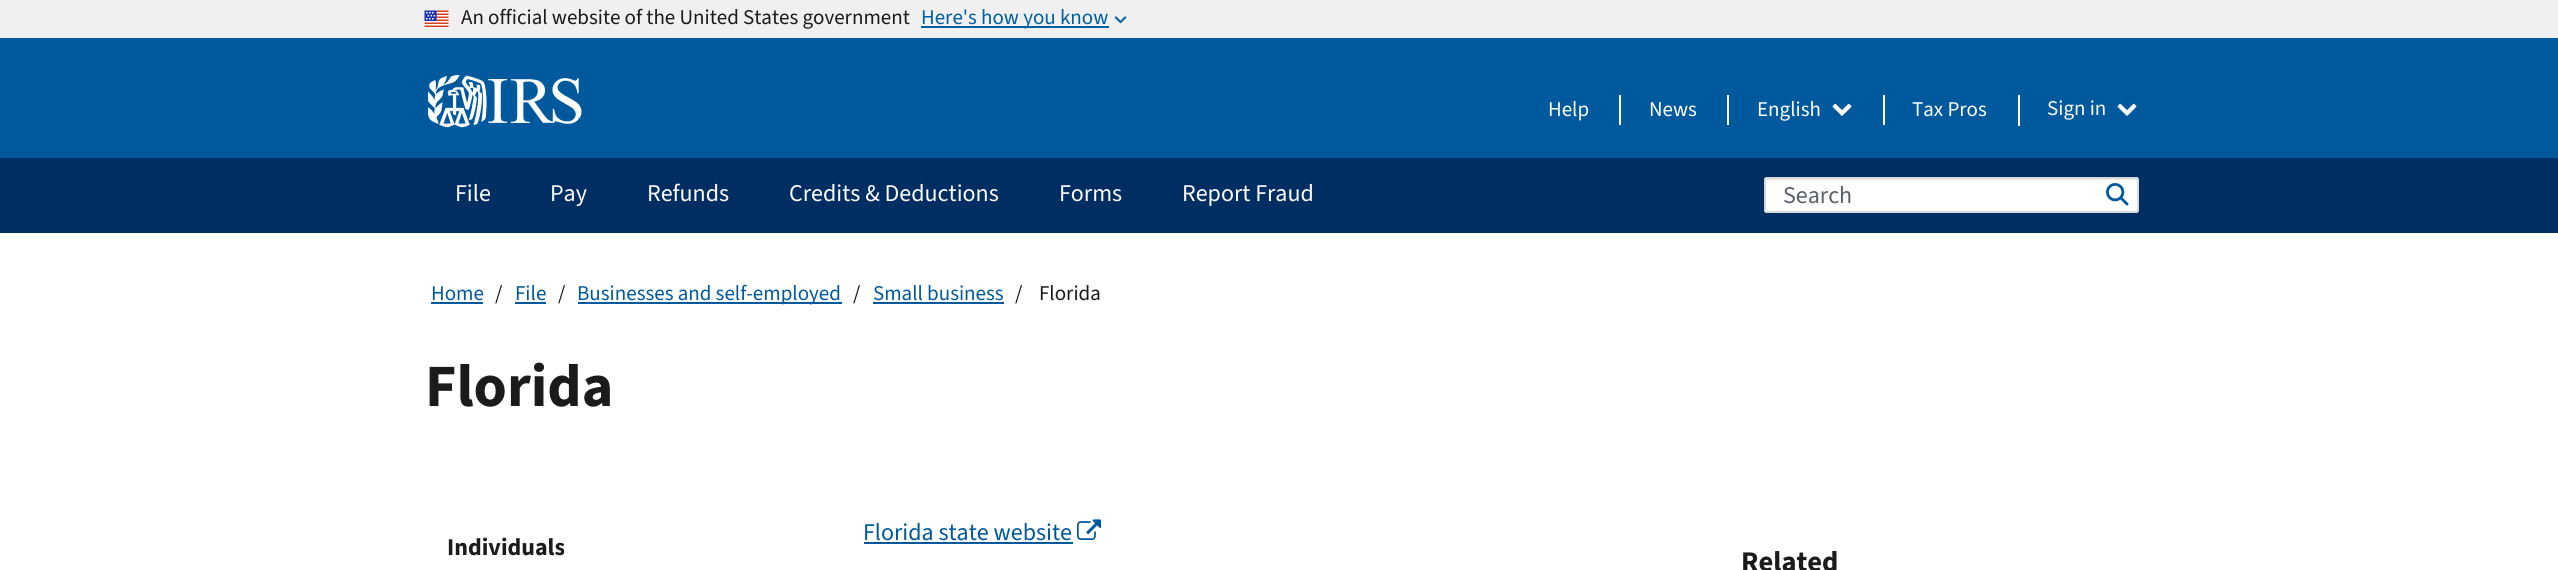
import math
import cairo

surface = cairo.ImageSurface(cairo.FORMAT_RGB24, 2558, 570)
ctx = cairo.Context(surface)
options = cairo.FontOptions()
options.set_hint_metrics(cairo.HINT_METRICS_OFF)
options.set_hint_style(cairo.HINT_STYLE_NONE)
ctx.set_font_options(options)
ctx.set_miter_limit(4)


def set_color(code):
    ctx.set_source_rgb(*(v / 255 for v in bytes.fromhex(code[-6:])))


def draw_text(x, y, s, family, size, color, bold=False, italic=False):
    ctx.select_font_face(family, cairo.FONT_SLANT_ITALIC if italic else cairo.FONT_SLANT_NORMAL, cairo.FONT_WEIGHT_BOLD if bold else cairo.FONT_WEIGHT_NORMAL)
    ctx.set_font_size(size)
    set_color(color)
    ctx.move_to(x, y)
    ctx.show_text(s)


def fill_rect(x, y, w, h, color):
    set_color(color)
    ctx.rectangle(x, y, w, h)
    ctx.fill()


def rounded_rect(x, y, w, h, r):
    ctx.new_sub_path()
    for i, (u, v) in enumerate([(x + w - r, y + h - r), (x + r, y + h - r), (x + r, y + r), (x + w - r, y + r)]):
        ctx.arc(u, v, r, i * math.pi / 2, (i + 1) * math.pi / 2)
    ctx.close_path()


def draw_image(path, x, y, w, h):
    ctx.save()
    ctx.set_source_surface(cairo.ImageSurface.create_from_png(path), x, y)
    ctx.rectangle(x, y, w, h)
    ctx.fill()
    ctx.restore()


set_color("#ffffff")
ctx.paint()
fill_rect(0, 0, 2558, 38, "#f0f0f0")
draw_image("assets/img1.png", 424, 10, 25, 17)
draw_text(461, 24, "An official website of the United States government", "Source Sans 3", 21, "#1b1b1b")
fill_rect(921, 26, 188, 2, "#005ea2")
draw_text(921, 24, "Here's how you know", "Source Sans 3", 21, "#005ea2")
draw_image("assets/img2.png", 1114, 16, 13, 8)
fill_rect(0, 38, 2558, 120, "#00599c")
draw_image("assets/img3.png", 428, 75, 154, 53)
draw_text(1548, 116, "Help", "Source Sans 3", 21, "#ffffff")
fill_rect(1619, 95, 2, 30, "#ffffff")
draw_text(1649, 116, "News", "Source Sans 3", 21, "#ffffff")
fill_rect(1727, 95, 2, 30, "#ffffff")
draw_text(1757, 116, "English", "Source Sans 3", 21, "#ffffff")
draw_image("assets/img4.png", 1832, 103, 20, 13)
fill_rect(1883, 95, 2, 30, "#ffffff")
draw_text(1912, 116, "Tax Pros", "Source Sans 3", 21, "#ffffff")
fill_rect(2018, 95, 2, 31, "#ffffff")
draw_text(2047, 115, "Sign in", "Source Sans 3", 21, "#ffffff")
draw_image("assets/img4.png", 2117, 103, 20, 13)
fill_rect(0, 158, 2558, 75, "#002d62")
draw_text(455, 201, "File", "Source Sans 3", 24, "#ffffff")
draw_text(550, 201, "Pay", "Source Sans 3", 24, "#ffffff")
draw_text(647, 201, "Refunds", "Source Sans 3", 24, "#ffffff")
draw_text(789, 201, "Credits & Deductions", "Source Sans 3", 24, "#ffffff")
draw_text(1059, 201, "Forms", "Source Sans 3", 24, "#ffffff")
draw_text(1182, 201, "Report Fraud", "Source Sans 3", 24, "#ffffff")
rounded_rect(1764, 177, 375, 36, 3)
ctx.fill()
set_color("#ececec")
ctx.new_path()
ctx.move_to(1767, 180)
ctx.line_to(2136, 180)
ctx.curve_to(2137, 180, 2138, 181, 2138, 182)
ctx.line_to(2137, 179)
ctx.line_to(1768, 179)
ctx.curve_to(1766, 179, 1766, 181, 1766, 182)
ctx.curve_to(1766, 181, 1766, 180, 1767, 180)
ctx.close_path()
ctx.fill()
rounded_rect(1765, 178, 373, 34, 2)
set_color("#d6d7d9")
ctx.stroke()
draw_text(1783, 203, "Search", "Source Sans 3", 24, "#5b616b")
draw_image("assets/img5.png", 2106, 183, 23, 23)
draw_text(431, 300, "Home", "Source Sans 3", 21, "#00599c")
fill_rect(431, 302, 52, 2, "#00599c")
draw_text(495, 300, "/", "Source Sans 3", 21, "#1b1b1b")
draw_text(515, 300, "File", "Source Sans 3", 21, "#00599c")
fill_rect(515, 302, 31, 2, "#00599c")
draw_text(558, 300, "/", "Source Sans 3", 21, "#1b1b1b")
fill_rect(578, 302, 264, 2, "#00599c")
draw_text(577, 300, "Businesses and self-employed", "Source Sans 3", 21, "#00599c")
draw_text(853, 300, "/", "Source Sans 3", 21, "#1b1b1b")
draw_text(873, 300, "Small business", "Source Sans 3", 21, "#00599c")
fill_rect(873, 302, 131, 2, "#00599c")
draw_text(1015, 300, "/", "Source Sans 3", 21, "#1b1b1b")
draw_text(1039, 300, "Florida", "Source Sans 3", 21, "#1b1b1b")
draw_text(425, 406, "Florida", "Source Sans 3", 60, "#1b1b1b", bold=True)
draw_text(447, 555, "Individuals", "Source Sans 3", 24, "#1b1b1b", bold=True)
draw_text(863, 540, "Florida state website", "Source Sans 3", 24, "#00599c")
fill_rect(864, 542, 209, 2, "#00599c")
draw_image("assets/img6.png", 1077, 519, 24, 21)
draw_text(1741, 571, "Related", "Source Sans 3", 28.5, "#1b1b1b", bold=True)
surface.write_to_png("output.png")
